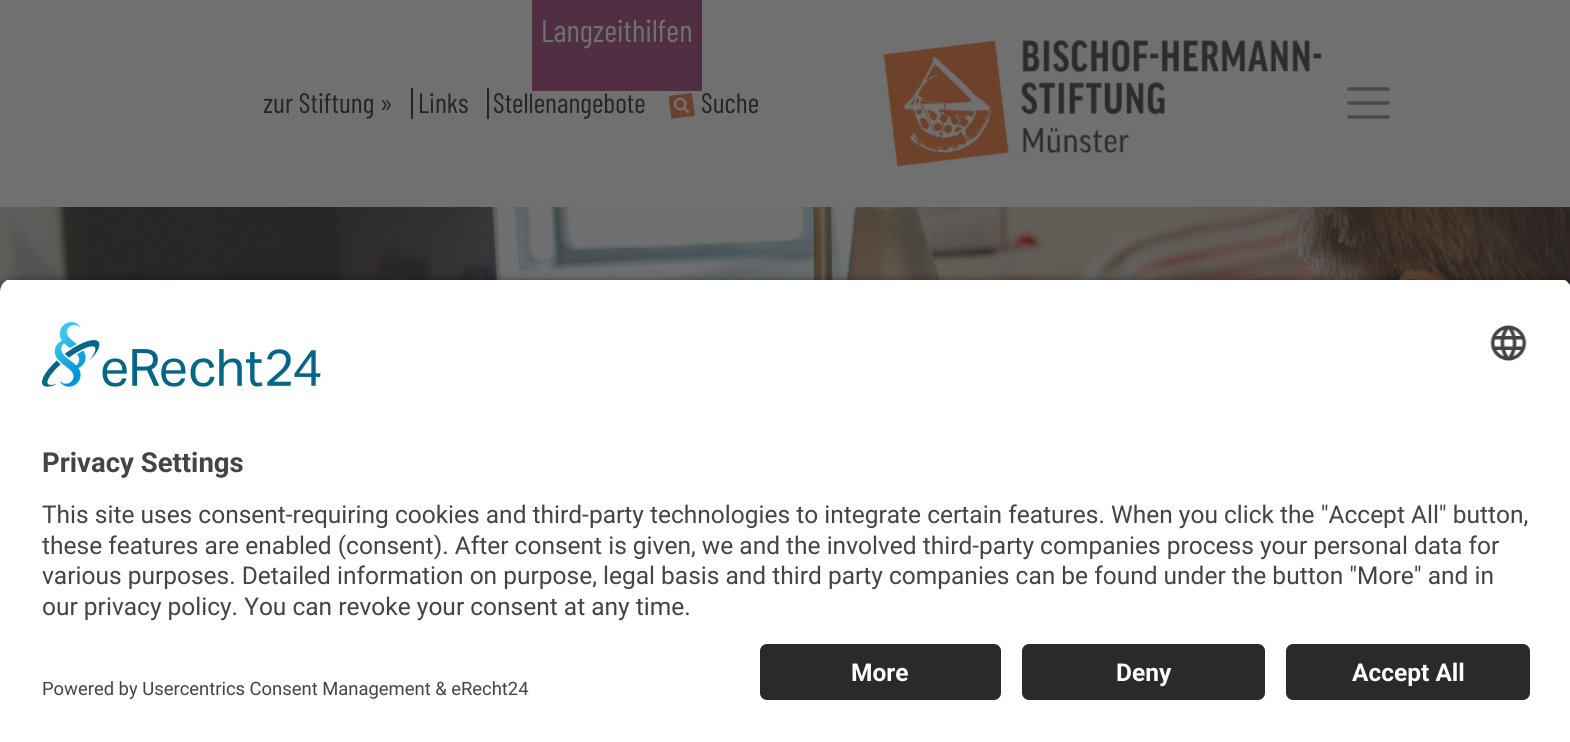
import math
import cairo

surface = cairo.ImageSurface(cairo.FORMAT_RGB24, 1570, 742)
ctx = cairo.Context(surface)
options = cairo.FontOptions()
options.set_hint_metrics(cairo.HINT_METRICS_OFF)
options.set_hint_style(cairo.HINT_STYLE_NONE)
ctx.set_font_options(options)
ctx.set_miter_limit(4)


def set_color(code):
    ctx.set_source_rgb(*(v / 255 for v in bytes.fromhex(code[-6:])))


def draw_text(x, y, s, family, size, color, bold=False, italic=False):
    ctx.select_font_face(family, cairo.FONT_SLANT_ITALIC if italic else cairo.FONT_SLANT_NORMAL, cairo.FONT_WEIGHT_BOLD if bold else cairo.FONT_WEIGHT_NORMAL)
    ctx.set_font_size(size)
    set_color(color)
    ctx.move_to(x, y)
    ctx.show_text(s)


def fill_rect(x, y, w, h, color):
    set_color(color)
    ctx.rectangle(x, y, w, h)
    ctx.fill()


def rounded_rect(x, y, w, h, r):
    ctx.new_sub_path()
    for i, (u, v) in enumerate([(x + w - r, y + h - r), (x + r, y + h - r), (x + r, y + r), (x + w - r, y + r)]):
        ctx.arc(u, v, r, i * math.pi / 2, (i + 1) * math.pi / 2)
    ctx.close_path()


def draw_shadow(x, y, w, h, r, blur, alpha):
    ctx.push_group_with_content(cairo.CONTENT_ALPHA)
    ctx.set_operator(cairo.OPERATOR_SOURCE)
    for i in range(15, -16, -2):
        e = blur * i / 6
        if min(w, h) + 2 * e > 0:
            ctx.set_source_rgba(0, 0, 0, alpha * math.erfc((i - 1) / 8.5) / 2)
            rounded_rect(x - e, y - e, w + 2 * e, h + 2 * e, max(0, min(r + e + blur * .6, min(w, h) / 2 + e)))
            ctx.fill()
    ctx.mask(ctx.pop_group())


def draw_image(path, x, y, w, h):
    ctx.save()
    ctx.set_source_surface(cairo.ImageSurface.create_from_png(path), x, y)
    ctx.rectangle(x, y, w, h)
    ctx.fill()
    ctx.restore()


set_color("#ffffff")
ctx.paint()
fill_rect(0, 0, 1570, 207, "#707070")
fill_rect(532, 0, 170, 91, "#512f43")
draw_text(541, 42, "Langzeithilfen", "Barlow Condensed", 31.5, "#707070")
fill_rect(411, 88, 2, 31, "#242424")
draw_text(263, 113, "zur Stiftung »", "Barlow Condensed", 28, "#242424")
fill_rect(487, 88, 2, 31, "#242424")
draw_text(418, 113, "Links", "Barlow Condensed", 28, "#242424")
draw_text(493, 113, "Stellenangebote", "Barlow Condensed", 28, "#242424")
draw_image("assets/img1.png", 669, 93, 26, 26)
draw_text(701, 113, "Suche", "Barlow Condensed", 28, "#242424")
draw_image("assets/img2.png", 883, 40, 439, 127)
ctx.new_path()
ctx.move_to(1349, 89)
ctx.line_to(1388, 89)
ctx.move_to(1349, 103)
ctx.line_to(1388, 103)
ctx.move_to(1349, 117)
ctx.line_to(1388, 117)
set_color("#4a4a4a")
ctx.set_line_width(3.5)
ctx.set_line_cap(cairo.LINE_CAP_ROUND)
ctx.stroke()
draw_image("assets/img3.png", 0, 207, 1570, 85)
set_color("#000000")
draw_shadow(0, 284, 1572, 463, 14, 6, 0.8)
ctx.save()
ctx.new_path()
ctx.move_to(14, 278)
ctx.line_to(1558, 278)
ctx.curve_to(1565.5, 278, 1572, 284.5, 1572, 292)
ctx.line_to(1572, 630)
ctx.line_to(0, 630)
ctx.line_to(0, 292)
ctx.curve_to(0, 284.5, 6.5, 278, 14, 278)
ctx.close_path()
ctx.clip()
fill_rect(0, 280, 1570, 350, "#ffffff")
ctx.restore()
draw_image("assets/img4.png", 42, 322, 279, 65)
draw_image("assets/img5.png", 1490, 325, 37, 36)
draw_text(42, 472, "Privacy Settings", "Roboto", 27.5, "#444444", bold=True)
draw_text(42, 523, "This site uses consent-requiring cookies and third-party technologies to integrate certain features. When you click the \"Accept All\" button,", "Roboto", 24.5, "#444444")
draw_text(42, 554, "these features are enabled (consent). After consent is given, we and the involved third-party companies process your personal data for", "Roboto", 24.5, "#444444")
draw_text(42, 584, "various purposes. Detailed information on purpose, legal basis and third party companies can be found under the button \"More\" and in", "Roboto", 24.5, "#444444")
draw_text(42, 615, "our privacy policy. You can revoke your consent at any time.", "Roboto", 24.5, "#444444")
fill_rect(0, 630, 1570, 112, "#ffffff")
set_color("#292a2b")
rounded_rect(760, 644, 241, 56, 7)
ctx.fill()
draw_text(851, 681, "More", "Roboto", 24.5, "#ffffff", bold=True)
set_color("#292a2b")
rounded_rect(1022, 644, 243, 56, 7)
ctx.fill()
draw_text(1116, 681, "Deny", "Roboto", 24.5, "#ffffff", bold=True)
set_color("#292a2b")
rounded_rect(1286, 644, 244, 56, 7)
ctx.fill()
draw_text(1352, 681, "Accept All", "Roboto", 24.5, "#ffffff", bold=True)
draw_text(42, 695, "Powered by Usercentrics Consent Management & eRecht24", "Roboto", 18.4, "#444444")
surface.write_to_png("output.png")
